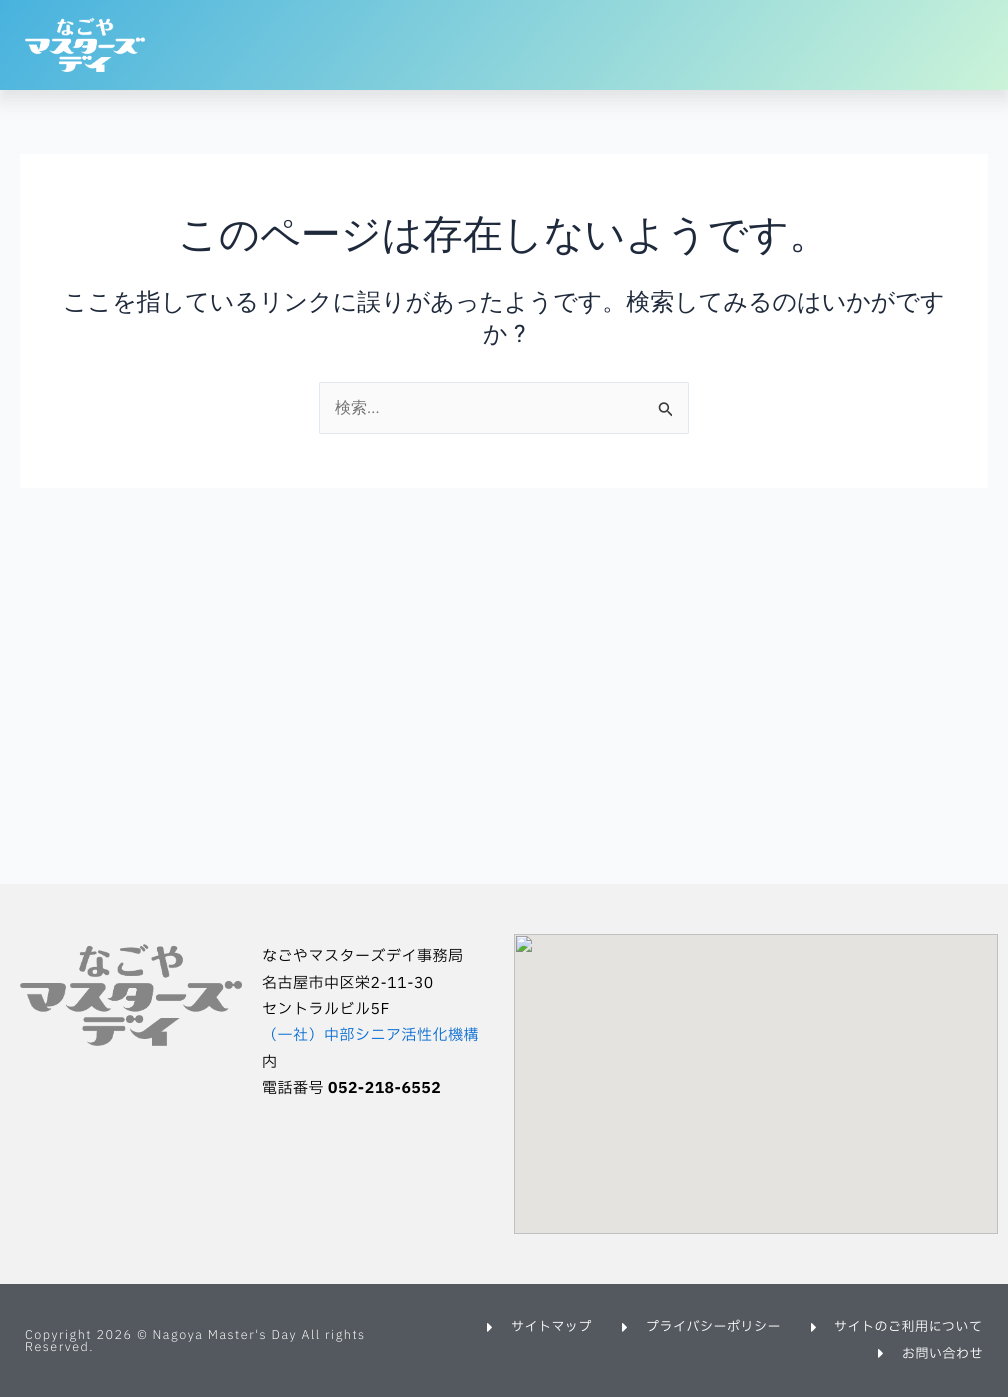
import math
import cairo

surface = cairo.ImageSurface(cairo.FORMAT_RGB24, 1008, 1397)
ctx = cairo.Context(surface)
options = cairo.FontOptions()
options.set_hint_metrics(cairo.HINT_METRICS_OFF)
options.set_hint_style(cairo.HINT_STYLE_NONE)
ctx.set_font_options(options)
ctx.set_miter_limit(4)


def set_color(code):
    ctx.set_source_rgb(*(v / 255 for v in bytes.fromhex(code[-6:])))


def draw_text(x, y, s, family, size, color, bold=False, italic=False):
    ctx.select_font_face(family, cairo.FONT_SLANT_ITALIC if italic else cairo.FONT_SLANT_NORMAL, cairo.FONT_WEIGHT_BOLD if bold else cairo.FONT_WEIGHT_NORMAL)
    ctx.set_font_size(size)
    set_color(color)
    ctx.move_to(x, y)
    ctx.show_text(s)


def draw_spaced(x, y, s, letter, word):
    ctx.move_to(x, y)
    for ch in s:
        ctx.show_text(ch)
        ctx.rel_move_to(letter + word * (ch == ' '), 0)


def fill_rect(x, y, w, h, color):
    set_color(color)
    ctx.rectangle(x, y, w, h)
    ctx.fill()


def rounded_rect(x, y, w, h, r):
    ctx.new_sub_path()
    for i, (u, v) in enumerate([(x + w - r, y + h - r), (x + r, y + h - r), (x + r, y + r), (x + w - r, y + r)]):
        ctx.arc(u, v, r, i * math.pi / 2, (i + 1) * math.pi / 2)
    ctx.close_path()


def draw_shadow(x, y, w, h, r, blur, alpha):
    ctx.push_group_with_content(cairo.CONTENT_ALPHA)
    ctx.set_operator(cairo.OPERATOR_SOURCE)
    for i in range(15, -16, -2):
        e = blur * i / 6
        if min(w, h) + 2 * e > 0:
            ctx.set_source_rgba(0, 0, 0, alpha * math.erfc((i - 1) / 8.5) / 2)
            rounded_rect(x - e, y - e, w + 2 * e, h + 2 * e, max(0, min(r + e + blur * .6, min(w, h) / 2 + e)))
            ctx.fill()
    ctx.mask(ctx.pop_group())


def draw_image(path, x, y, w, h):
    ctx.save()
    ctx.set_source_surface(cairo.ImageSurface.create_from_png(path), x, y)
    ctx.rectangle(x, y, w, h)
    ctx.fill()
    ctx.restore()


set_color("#f9fafb")
ctx.paint()
set_color("#000000")
draw_shadow(0, 10, 1008, 90, 0, 10, 0.1)
gradient = cairo.LinearGradient(186, -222, 822, 312)
gradient.add_color_stop_rgba(0, 0.282, 0.698, 0.871, 1)
gradient.add_color_stop_rgba(1, 0.796, 0.953, 0.851, 1)
ctx.set_source(gradient)
ctx.rectangle(0, 0, 1008, 90)
ctx.fill()
draw_image("assets/img1.png", 25, 17, 121, 55)
fill_rect(20, 154, 968, 334, "#ffffff")
draw_text(178, 248, "このページは存在しないようです。", "WenQuanYi Zen Hei Medium", 40, "#1e293b")
draw_text(63, 310, "ここを指しているリンクに誤りがあったようです。検索してみるのはいかがです", "WenQuanYi Zen Hei Medium", 24, "#1e293b")
draw_text(483, 342, "か", "WenQuanYi Zen Hei Medium", 24, "#1e293b")
draw_text(514, 342, "?", "Roboto", 24, "#1e293b")
set_color("#fafafa")
rounded_rect(319.5, 382.5, 369, 51, 1.5)
ctx.fill_preserve()
set_color("#e2e8f0")
ctx.set_line_width(1)
ctx.stroke()
draw_text(335, 413, "検索", "WenQuanYi Zen Hei Medium", 16, "#757575")
draw_text(367, 413, "...", "Roboto", 16, "#757575")
draw_image("assets/img2.png", 658, 402, 14, 15)
fill_rect(0, 884, 1008, 400, "#f2f2f2")
draw_image("assets/img3.png", 20, 944, 222, 102)
ctx.select_font_face("IBM Plex Sans JP")
ctx.set_font_size(15)
set_color("#000000")
draw_spaced(262, 961, "なごやマスターズデイ事務局", 0.5, 0)
draw_spaced(262, 988, "名古屋市中区栄2-11-30", 0.5, 0)
draw_spaced(262, 1014, "セントラルビル5F", 0.5, 0)
set_color("#046bd2")
draw_spaced(262, 1040, "（一社）中部シニア活性化機構", 0.5, 0)
set_color("#000000")
draw_spaced(262, 1067, "内", 0.5, 0)
draw_spaced(262, 1093, "電話番号", 0.5, 0)
ctx.select_font_face("IBM Plex Sans JP", cairo.FONT_SLANT_NORMAL, cairo.FONT_WEIGHT_BOLD)
draw_spaced(328, 1093, "052-218-6552", 0.5, 0)
draw_image("assets/img4.png", 514, 934, 484, 300)
fill_rect(0, 1284, 1008, 113, "#54595f")
ctx.select_font_face("IBM Plex Sans JP Light")
ctx.set_font_size(12)
set_color("#ffffff")
draw_spaced(25, 1339, "Copyright 2026 © Nagoya Master's Day All rights", 1.5, 0)
draw_spaced(25, 1351, "Reserved.", 1.5, 0)
draw_image("assets/img5.png", 487, 1323, 5, 9)
ctx.select_font_face("IBM Plex Sans JP")
ctx.set_font_size(13)
draw_spaced(511, 1331, "サイトマップ", 0.5, 0)
draw_image("assets/img5.png", 622, 1323, 5, 9)
draw_spaced(646, 1331, "プライバシーポリシー", 0.5, 0)
draw_image("assets/img5.png", 811, 1323, 5, 9)
draw_spaced(834, 1331, "サイトのご利用について", 0.5, 0)
draw_image("assets/img5.png", 878, 1349, 5, 9)
draw_spaced(902, 1358, "お問い合わせ", 0.5, 0)
surface.write_to_png("output.png")
